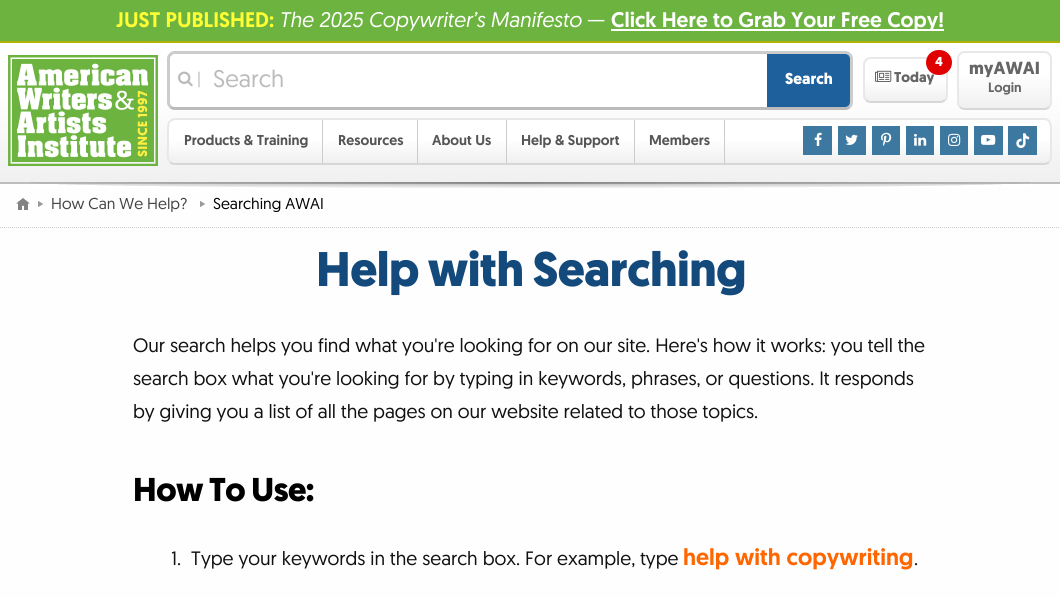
import math
import cairo

surface = cairo.ImageSurface(cairo.FORMAT_RGB24, 1060, 597)
ctx = cairo.Context(surface)
options = cairo.FontOptions()
options.set_hint_metrics(cairo.HINT_METRICS_OFF)
options.set_hint_style(cairo.HINT_STYLE_NONE)
ctx.set_font_options(options)
ctx.set_miter_limit(4)


def set_color(code):
    ctx.set_source_rgb(*(v / 255 for v in bytes.fromhex(code[-6:])))


def draw_text(x, y, s, family, size, color, bold=False, italic=False):
    ctx.select_font_face(family, cairo.FONT_SLANT_ITALIC if italic else cairo.FONT_SLANT_NORMAL, cairo.FONT_WEIGHT_BOLD if bold else cairo.FONT_WEIGHT_NORMAL)
    ctx.set_font_size(size)
    set_color(color)
    ctx.move_to(x, y)
    ctx.show_text(s)


def draw_spaced(x, y, s, letter, word):
    ctx.move_to(x, y)
    for ch in s:
        ctx.show_text(ch)
        ctx.rel_move_to(letter + word * (ch == ' '), 0)


def fill_rect(x, y, w, h, color):
    set_color(color)
    ctx.rectangle(x, y, w, h)
    ctx.fill()


def rounded_rect(x, y, w, h, r):
    ctx.new_sub_path()
    for i, (u, v) in enumerate([(x + w - r, y + h - r), (x + r, y + h - r), (x + r, y + r), (x + w - r, y + r)]):
        ctx.arc(u, v, r, i * math.pi / 2, (i + 1) * math.pi / 2)
    ctx.close_path()


def draw_image(path, x, y, w, h):
    ctx.save()
    ctx.set_source_surface(cairo.ImageSurface.create_from_png(path), x, y)
    ctx.rectangle(x, y, w, h)
    ctx.fill()
    ctx.restore()


set_color("#6cb33f")
ctx.paint()
fill_rect(0, 41, 1060, 2, "#b2b204")
draw_text(116, 27, "JUST PUBLISHED:", "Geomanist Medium", 21.1, "#ffff33")
draw_text(279, 27, "The 2025 Copywriter’s Manifesto", "Geomanist", 21.1, "#ffffff", italic=True)
draw_text(587, 27, "—", "Geomanist", 21.1, "#ffffff")
fill_rect(611, 29, 333, 2, "#ffffff")
draw_text(611, 27, "Click Here to Grab Your Free Copy!", "Geomanist Medium", 21.1, "#ffffff")
gradient = cairo.LinearGradient(530, 43, 530, 182)
gradient.add_color_stop_rgba(0.36, 1, 1, 1, 1)
gradient.add_color_stop_rgba(1, 0.941, 0.941, 0.941, 1)
ctx.set_source(gradient)
ctx.rectangle(0, 43, 1060, 139)
ctx.fill()
fill_rect(0, 182, 1060, 2, "#bdbdbd")
draw_image("assets/img1.png", 8, 55, 150, 111)
set_color("#ffffff")
rounded_rect(167, 51, 686, 59, 8)
ctx.fill()
ctx.new_path()
ctx.move_to(849.5, 106.5)
ctx.curve_to(848.5, 108, 847, 108.5, 845, 108.5)
ctx.line_to(175, 108.5)
ctx.curve_to(173, 108.5, 171.5, 108, 170.5, 106.5)
set_color("#bbbbbb")
ctx.set_line_width(3)
ctx.stroke()
ctx.new_path()
ctx.move_to(170.5, 106.5)
ctx.curve_to(169, 105.5, 168.5, 104, 168.5, 102)
ctx.line_to(168.5, 59)
ctx.curve_to(168.5, 57, 169, 55.5, 170.5, 54.5)
ctx.curve_to(171.5, 53, 173, 52.5, 175, 52.5)
ctx.line_to(845, 52.5)
ctx.curve_to(847, 52.5, 848.5, 53, 849.5, 54.5)
ctx.curve_to(851, 55.5, 851.5, 57, 851.5, 59)
ctx.line_to(851.5, 102)
ctx.curve_to(851.5, 104, 851, 105.5, 849.5, 106.5)
set_color("#cccccc")
ctx.stroke()
draw_image("assets/img2.png", 178, 71, 15, 16)
draw_text(197, 84, "|", "Geomanist", 15.75, "#bbbbbb")
draw_text(213, 87, "Search", "Geomanist", 24, "#bbbbbb")
set_color("#1e609c")
ctx.new_path()
ctx.move_to(767, 54)
ctx.line_to(845, 54)
ctx.curve_to(848, 54, 850, 56, 850, 59)
ctx.line_to(850, 102)
ctx.curve_to(850, 105, 848, 107, 845, 107)
ctx.line_to(767, 107)
ctx.close_path()
ctx.fill()
draw_text(785, 84, "Search", "Geomanist", 15.75, "#ffffff", bold=True)
ctx.save()
rounded_rect(863, 57, 85, 46, 8)
ctx.clip()
gradient = cairo.LinearGradient(906, 59, 906, 101)
gradient.add_color_stop_rgba(0.48, 1, 1, 1, 1)
gradient.add_color_stop_rgba(1, 0.941, 0.941, 0.941, 1)
ctx.set_source(gradient)
ctx.rectangle(863, 59, 85, 42)
ctx.fill()
ctx.restore()
ctx.new_path()
ctx.move_to(945, 100)
ctx.curve_to(943.5, 101.5, 942, 102, 940, 102)
ctx.line_to(871, 102)
ctx.curve_to(869, 102, 867.5, 101.5, 866, 100)
set_color("#d7d7d7")
ctx.set_line_width(2)
ctx.stroke()
ctx.new_path()
ctx.move_to(866, 100)
ctx.curve_to(864.5, 98.5, 864, 97, 864, 95)
ctx.line_to(864, 65)
ctx.curve_to(864, 63, 864.5, 61.5, 866, 60)
ctx.curve_to(867.5, 58.5, 869, 58, 871, 58)
ctx.line_to(940, 58)
ctx.curve_to(942, 58, 943.5, 58.5, 945, 60)
ctx.curve_to(946.5, 61.5, 947, 63, 947, 65)
ctx.line_to(947, 95)
ctx.curve_to(947, 97, 946.5, 98.5, 945, 100)
set_color("#e8e8e8")
ctx.stroke()
draw_text(894, 82, "Today", "Geomanist", 14.25, "#666666", bold=True)
set_color("#e00000")
rounded_rect(926, 50, 26, 25, 12.5)
ctx.fill()
draw_text(935, 66, "4", "Geomanist", 13, "#ffffff", bold=True)
draw_image("assets/img3.png", 875, 70, 17, 12)
ctx.save()
rounded_rect(957, 51, 95, 59, 8)
ctx.clip()
gradient = cairo.LinearGradient(1005, 53, 1005, 108)
gradient.add_color_stop_rgba(0.36, 1, 1, 1, 1)
gradient.add_color_stop_rgba(1, 0.941, 0.941, 0.941, 1)
ctx.set_source(gradient)
ctx.rectangle(957, 53, 95, 55)
ctx.fill()
ctx.restore()
ctx.new_path()
ctx.move_to(1049, 107)
ctx.curve_to(1047.5, 108.5, 1046, 109, 1044, 109)
ctx.line_to(965, 109)
ctx.curve_to(963, 109, 961.5, 108.5, 960, 107)
set_color("#d7d7d7")
ctx.stroke()
ctx.new_path()
ctx.move_to(960, 107)
ctx.curve_to(958.5, 105.5, 958, 104, 958, 102)
ctx.line_to(958, 59)
ctx.curve_to(958, 57, 958.5, 55.5, 960, 54)
ctx.curve_to(961.5, 52.5, 963, 52, 965, 52)
ctx.line_to(1044, 52)
ctx.curve_to(1046, 52, 1047.5, 52.5, 1049, 54)
ctx.curve_to(1050.5, 55.5, 1051, 57, 1051, 59)
ctx.line_to(1051, 102)
ctx.curve_to(1051, 104, 1050.5, 105.5, 1049, 107)
set_color("#e8e8e8")
ctx.stroke()
draw_text(969, 74, "myAWAI", "Geomanist", 17.5, "#666666", bold=True)
draw_text(988, 92, "Login", "Geomanist Medium", 13.5, "#666666")
ctx.save()
rounded_rect(167, 118, 885, 47, 8)
ctx.clip()
gradient = cairo.LinearGradient(610, 77, 610, 120)
gradient.add_color_stop_rgba(0.45, 1, 1, 1, 1)
gradient.add_color_stop_rgba(1, 0.941, 0.941, 0.941, 1)
ctx.set_source(gradient)
ctx.rectangle(167, 118, 885, 2)
ctx.fill()
gradient = cairo.LinearGradient(610, 120, 610, 163)
gradient.add_color_stop_rgba(0.45, 1, 1, 1, 1)
gradient.add_color_stop_rgba(1, 0.941, 0.941, 0.941, 1)
ctx.set_source(gradient)
ctx.rectangle(167, 120, 885, 43)
ctx.fill()
ctx.restore()
ctx.new_path()
ctx.move_to(1049, 162)
ctx.curve_to(1047.5, 163.5, 1046, 164, 1044, 164)
ctx.line_to(175, 164)
ctx.curve_to(173, 164, 171.5, 163.5, 170, 162)
set_color("#d7d7d7")
ctx.stroke()
ctx.new_path()
ctx.move_to(170, 162)
ctx.curve_to(166.5, 158.5, 168, 151, 168, 146.5)
ctx.line_to(168, 131)
ctx.curve_to(168, 127, 167.5, 122, 171.5, 120)
ctx.line_to(175, 119)
ctx.line_to(1044, 119)
ctx.curve_to(1051, 119, 1051, 126, 1051, 131)
ctx.line_to(1051, 152)
ctx.curve_to(1051, 155.5, 1051.5, 159.5, 1049, 162)
set_color("#e8e8e8")
ctx.stroke()
fill_rect(322, 120, 1, 43, "#cccccc")
draw_text(184, 145, "Products & Training", "Geomanist Medium", 14.25, "#555555")
fill_rect(417, 120, 1, 43, "#cccccc")
draw_text(338, 145, "Resources", "Geomanist Medium", 14.25, "#555555")
fill_rect(506, 120, 1, 43, "#cccccc")
draw_text(432, 145, "About Us", "Geomanist Medium", 14.25, "#555555")
fill_rect(634, 120, 1, 43, "#cccccc")
draw_text(521, 145, "Help & Support", "Geomanist Medium", 14.25, "#555555")
fill_rect(724, 120, 1, 43, "#cccccc")
draw_text(649, 145, "Members", "Geomanist Medium", 14.25, "#555555")
fill_rect(803, 126, 29, 29, "#3c78a0")
draw_image("assets/img4.png", 814, 132, 8, 14)
fill_rect(838, 126, 28, 29, "#3c78a0")
draw_image("assets/img5.png", 845, 134, 13, 11)
fill_rect(872, 126, 28, 29, "#3c78a0")
draw_image("assets/img6.png", 881, 132, 11, 14)
fill_rect(906, 126, 28, 29, "#3c78a0")
draw_image("assets/img7.png", 914, 134, 13, 12)
fill_rect(940, 126, 28, 29, "#3c78a0")
draw_image("assets/img8.png", 948, 133, 13, 13)
fill_rect(974, 126, 29, 29, "#3c78a0")
draw_image("assets/img9.png", 981, 134, 15, 11)
fill_rect(1008, 126, 29, 29, "#3c78a0")
draw_image("assets/img10.png", 1016, 133, 14, 15)
fill_rect(0, 184, 1060, 413, "#fefefe")
draw_image("assets/img11.png", 30, 182, 1000, 6)
ctx.new_path()
ctx.move_to(0, 227.5)
ctx.line_to(1060, 227.5)
set_color("#cccccc")
ctx.set_line_width(1)
ctx.set_dash([1, 1])
ctx.stroke()
draw_image("assets/img12.png", 16, 198, 14, 12)
draw_image("assets/img13.png", 38, 201, 5, 6)
draw_text(51, 209, "How Can We Help?", "Geomanist", 15.75, "#444444")
draw_image("assets/img13.png", 200, 201, 5, 6)
draw_text(213, 209, "Searching AWAI", "Geomanist", 15.75, "#000000")
ctx.select_font_face("Geomanist", cairo.FONT_SLANT_NORMAL, cairo.FONT_WEIGHT_BOLD)
ctx.set_font_size(48.5)
set_color("#13497b")
draw_spaced(316, 286, "Help with Searching", -0.5, 0)
draw_text(133, 352, "Our search helps you find what you're looking for on our site. Here's how it works: you tell the", "Geomanist", 19.35, "#111111")
draw_text(133, 385, "search box what you're looking for by typing in keywords, phrases, or questions. It responds", "Geomanist", 19.35, "#111111")
draw_text(133, 418, "by giving you a list of all the pages on our website related to those topics.", "Geomanist", 19.35, "#111111")
ctx.select_font_face("Geomanist", cairo.FONT_SLANT_NORMAL, cairo.FONT_WEIGHT_BOLD)
ctx.set_font_size(33)
set_color("#000000")
draw_spaced(133, 501, "How To Use:", -0.5, 0)
draw_text(171, 565, "1.", "Geomanist", 19.35, "#111111")
draw_text(191, 565, "Type your keywords in the search box. For example, type", "Geomanist", 19.35, "#111111")
draw_text(683, 565, "help with copywriting", "Geomanist Medium", 23.25, "#ff6600")
draw_text(914, 565, ".", "Geomanist", 19.35, "#111111")
surface.write_to_png("output.png")
